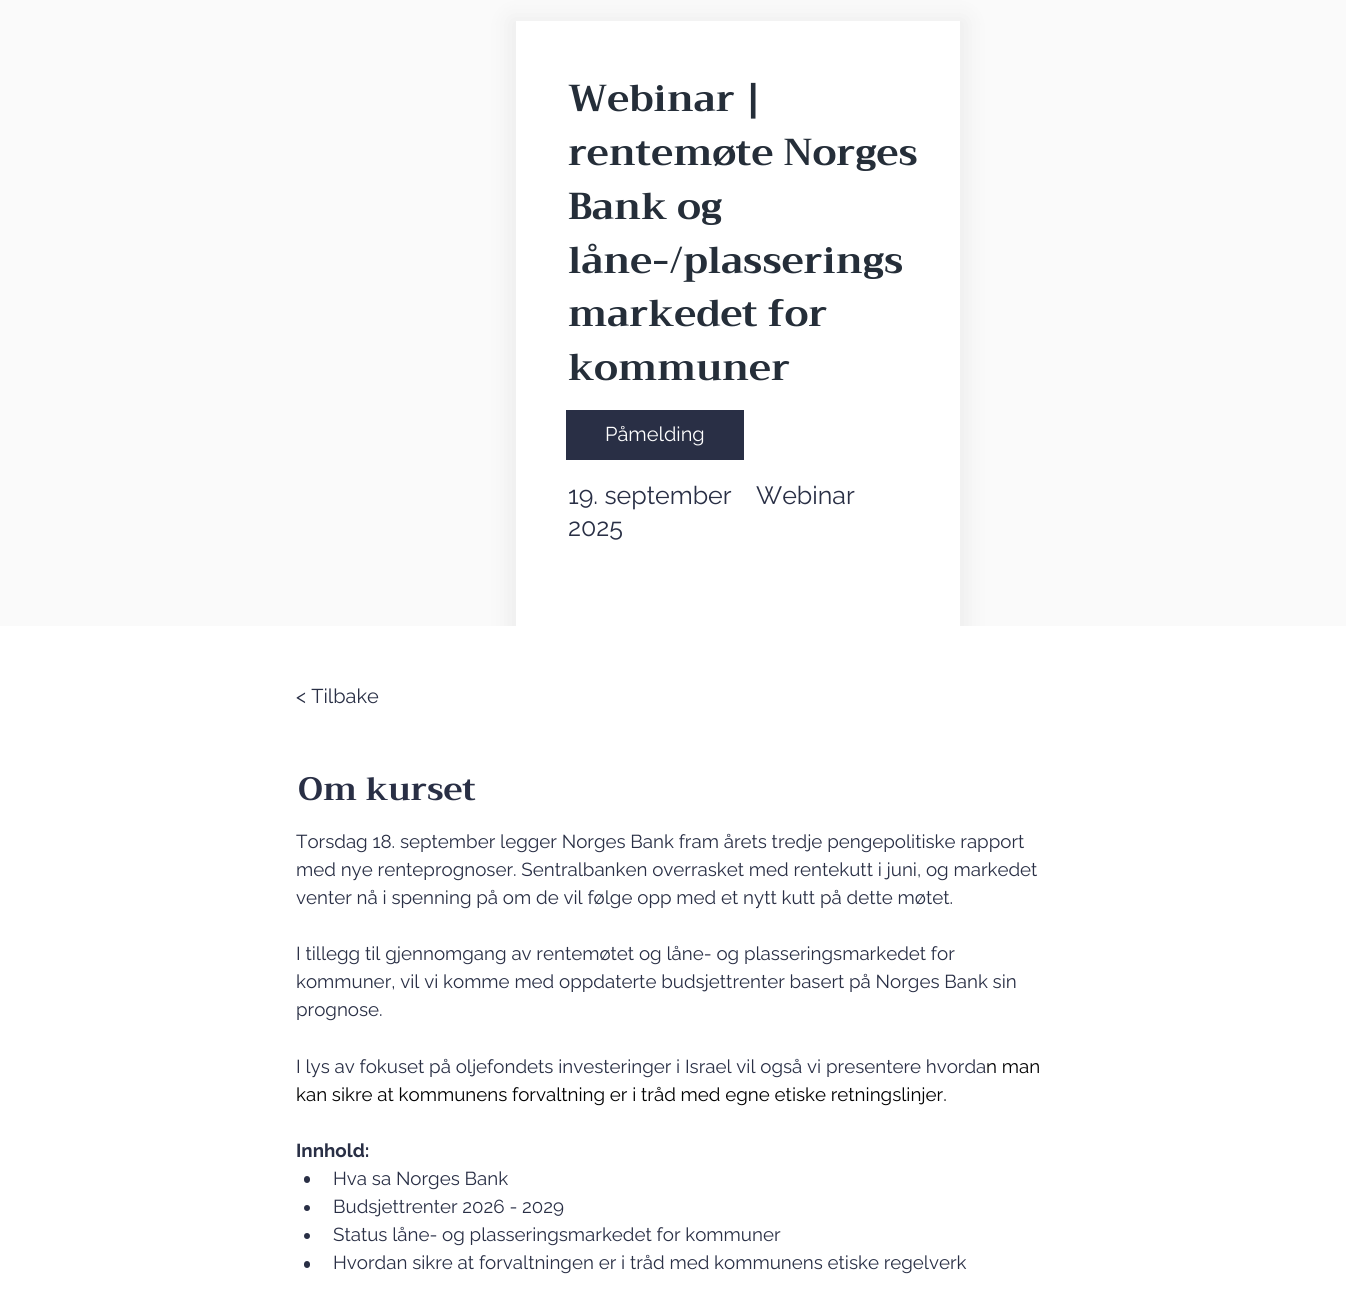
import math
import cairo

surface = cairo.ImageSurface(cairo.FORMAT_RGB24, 1346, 1308)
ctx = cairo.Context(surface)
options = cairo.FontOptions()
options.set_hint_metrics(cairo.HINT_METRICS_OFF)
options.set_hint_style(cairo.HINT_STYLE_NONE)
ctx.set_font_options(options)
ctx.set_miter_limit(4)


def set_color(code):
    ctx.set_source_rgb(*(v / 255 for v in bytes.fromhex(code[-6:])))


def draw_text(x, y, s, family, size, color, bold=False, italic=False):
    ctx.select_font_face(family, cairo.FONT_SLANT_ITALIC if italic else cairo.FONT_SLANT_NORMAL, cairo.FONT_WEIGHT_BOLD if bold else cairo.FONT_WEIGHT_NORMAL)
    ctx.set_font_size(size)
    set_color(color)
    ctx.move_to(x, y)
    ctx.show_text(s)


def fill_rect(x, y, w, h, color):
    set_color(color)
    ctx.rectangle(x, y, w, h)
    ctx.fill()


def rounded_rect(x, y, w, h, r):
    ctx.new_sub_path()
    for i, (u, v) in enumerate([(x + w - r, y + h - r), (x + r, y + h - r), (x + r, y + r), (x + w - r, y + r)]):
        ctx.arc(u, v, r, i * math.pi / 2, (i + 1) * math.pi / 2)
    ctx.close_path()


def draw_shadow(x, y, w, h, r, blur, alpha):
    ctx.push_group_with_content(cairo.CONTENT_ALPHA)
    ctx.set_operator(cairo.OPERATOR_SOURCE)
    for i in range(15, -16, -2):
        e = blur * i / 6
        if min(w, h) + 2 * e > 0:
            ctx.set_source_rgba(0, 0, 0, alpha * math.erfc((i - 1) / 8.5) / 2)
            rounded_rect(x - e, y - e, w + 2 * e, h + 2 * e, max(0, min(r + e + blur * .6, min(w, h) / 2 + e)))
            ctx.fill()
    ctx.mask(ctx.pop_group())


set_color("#fafafa")
ctx.paint()
set_color("#000000")
draw_shadow(510, 19, 456, 617, 0, 12.5, 0.06)
fill_rect(516, 21, 444, 605, "#ffffff")
draw_text(568, 111, "Webinar |", "Trirong", 37.5, "#252e39", bold=True)
draw_text(568, 165, "rentemøte Norges", "Trirong", 37.5, "#252e39", bold=True)
draw_text(568, 219, "Bank og", "Trirong", 37.5, "#252e39", bold=True)
draw_text(568, 273, "låne-/plasserings", "Trirong", 37.5, "#252e39", bold=True)
draw_text(568, 326, "markedet for", "Trirong", 37.5, "#252e39", bold=True)
draw_text(568, 380, "kommuner", "Trirong", 37.5, "#252e39", bold=True)
fill_rect(566, 410, 178, 50, "#292f45")
draw_text(605, 441, "Påmelding", "Raleway", 20, "#ffffff")
draw_text(568, 504, "19. september", "Raleway", 25, "#292f45")
draw_text(568, 536, "2025", "Raleway", 25, "#292f45")
draw_text(756, 504, "Webinar", "Raleway", 25, "#292f45")
fill_rect(0, 626, 1346, 682, "#ffffff")
draw_text(296, 703, "< Tilbake", "Raleway", 20, "#292f45")
draw_text(298, 800, "Om kurset", "Trirong", 32.5, "#292f45", bold=True)
draw_text(296, 848, "Torsdag 18. september legger Norges Bank fram årets tredje pengepolitiske rapport", "Raleway", 18.75, "#292f45")
draw_text(296, 876, "med nye renteprognoser. Sentralbanken overrasket med rentekutt i juni, og markedet", "Raleway", 18.75, "#292f45")
draw_text(296, 904, "venter nå i spenning på om de vil følge opp med et nytt kutt på dette møtet.", "Raleway", 18.75, "#292f45")
draw_text(296, 960, "I tillegg til gjennomgang av rentemøtet og låne- og plasseringsmarkedet for", "Raleway", 18.75, "#292f45")
draw_text(296, 988, "kommuner, vil vi komme med oppdaterte budsjettrenter basert på Norges Bank sin", "Raleway", 18.75, "#292f45")
draw_text(296, 1016, "prognose.", "Raleway", 18.75, "#292f45")
draw_text(296, 1073, "I lys av fokuset på oljefondets investeringer i Israel vil også vi presentere hvorda", "Raleway", 18.75, "#292f45")
draw_text(986, 1073, "n man", "Raleway", 18.75, "#000000")
draw_text(296, 1101, "kan sikre at kommunens forvaltning er i tråd med egne etiske retningslinjer.", "Raleway", 18.75, "#000000")
draw_text(296, 1157, "Innhold:", "Raleway", 18.75, "#292f45", bold=True)
rounded_rect(304, 1176, 6, 7, 3)
ctx.fill()
draw_text(333, 1185, "Hva sa Norges Bank", "Raleway", 18.75, "#292f45")
ctx.new_path()
ctx.arc(307, 1208, 3, 0, 2 * math.pi)
ctx.fill()
draw_text(333, 1213, "Budsjettrenter 2026 - 2029", "Raleway", 18.75, "#292f45")
ctx.new_path()
ctx.arc(307, 1236, 3, 0, 2 * math.pi)
ctx.fill()
draw_text(333, 1241, "Status låne- og plasseringsmarkedet for kommuner", "Raleway", 18.75, "#292f45")
rounded_rect(304, 1261, 6, 7, 3)
ctx.fill()
draw_text(333, 1269, "Hvordan sikre at forvaltningen er i tråd med kommunens etiske regelverk", "Raleway", 18.75, "#292f45")
surface.write_to_png("output.png")
